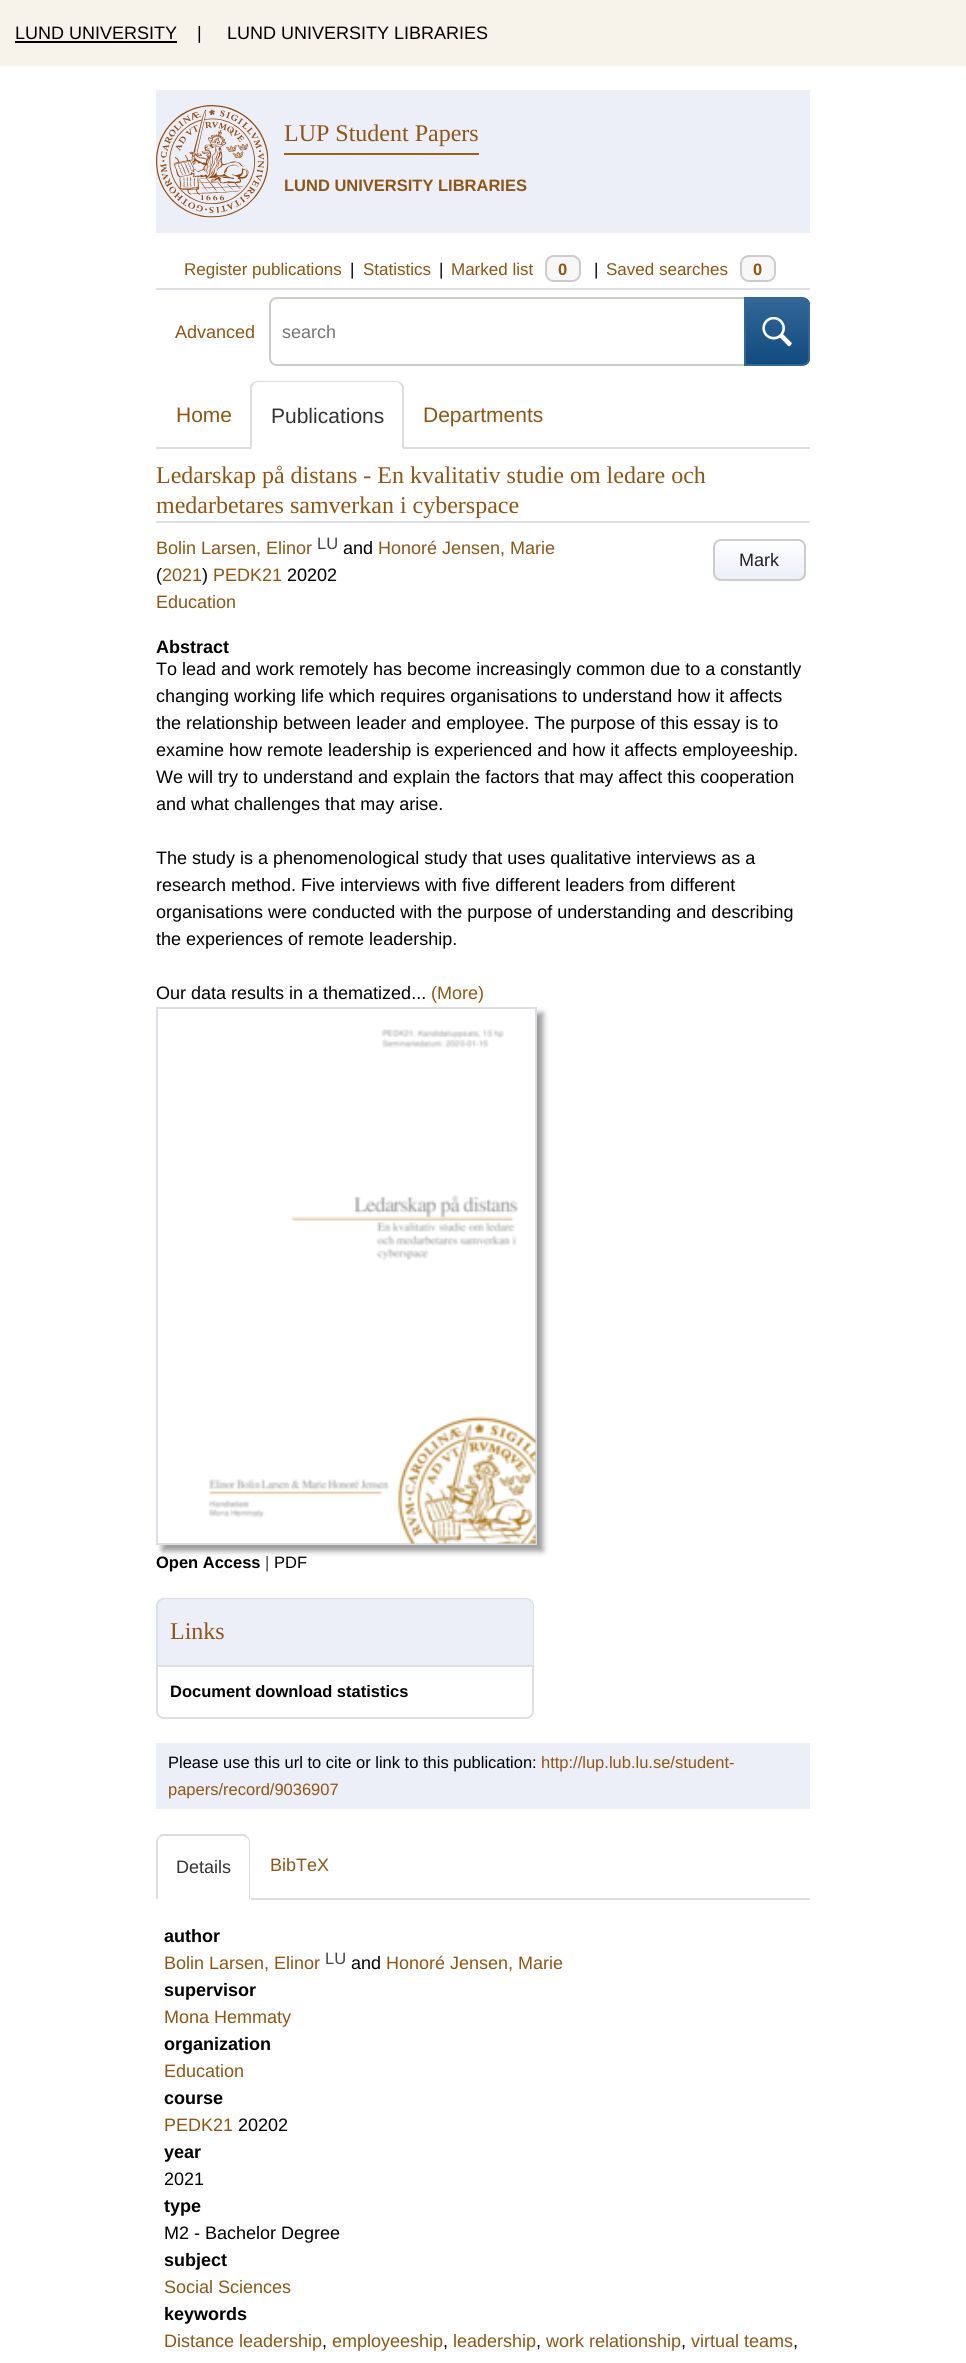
import math
import cairo

surface = cairo.ImageSurface(cairo.FORMAT_RGB24, 966, 2363)
ctx = cairo.Context(surface)
options = cairo.FontOptions()
options.set_hint_metrics(cairo.HINT_METRICS_OFF)
options.set_hint_style(cairo.HINT_STYLE_NONE)
ctx.set_font_options(options)
ctx.set_miter_limit(4)


def set_color(code):
    ctx.set_source_rgb(*(v / 255 for v in bytes.fromhex(code[-6:])))


def draw_text(x, y, s, family, size, color, bold=False, italic=False):
    ctx.select_font_face(family, cairo.FONT_SLANT_ITALIC if italic else cairo.FONT_SLANT_NORMAL, cairo.FONT_WEIGHT_BOLD if bold else cairo.FONT_WEIGHT_NORMAL)
    ctx.set_font_size(size)
    set_color(color)
    ctx.move_to(x, y)
    ctx.show_text(s)


def fill_rect(x, y, w, h, color):
    set_color(color)
    ctx.rectangle(x, y, w, h)
    ctx.fill()


def rounded_rect(x, y, w, h, r):
    ctx.new_sub_path()
    for i, (u, v) in enumerate([(x + w - r, y + h - r), (x + r, y + h - r), (x + r, y + r), (x + w - r, y + r)]):
        ctx.arc(u, v, r, i * math.pi / 2, (i + 1) * math.pi / 2)
    ctx.close_path()


def draw_shadow(x, y, w, h, r, blur, alpha):
    ctx.push_group_with_content(cairo.CONTENT_ALPHA)
    ctx.set_operator(cairo.OPERATOR_SOURCE)
    for i in range(15, -16, -2):
        e = blur * i / 6
        if min(w, h) + 2 * e > 0:
            ctx.set_source_rgba(0, 0, 0, alpha * math.erfc((i - 1) / 8.5) / 2)
            rounded_rect(x - e, y - e, w + 2 * e, h + 2 * e, max(0, min(r + e + blur * .6, min(w, h) / 2 + e)))
            ctx.fill()
    ctx.mask(ctx.pop_group())


def draw_image(path, x, y, w, h):
    ctx.save()
    ctx.set_source_surface(cairo.ImageSurface.create_from_png(path), x, y)
    ctx.rectangle(x, y, w, h)
    ctx.fill()
    ctx.restore()


set_color("#ffffff")
ctx.paint()
fill_rect(0, 0, 966, 66, "#f8f3ea")
draw_text(15, 39, "LUND UNIVERSITY", "Liberation Sans", 18, "#000000")
fill_rect(15, 41, 162, 2, "#000000")
draw_text(197, 39, "|", "Liberation Sans", 18, "#000000")
draw_text(227, 39, "LUND UNIVERSITY LIBRARIES", "Liberation Sans", 18, "#000000")
fill_rect(156, 90, 654, 143, "#eceff8")
draw_image("assets/img1.png", 156, 105, 113, 113)
draw_text(284, 141, "LUP Student Papers", "Liberation Serif", 24, "#8e5614")
fill_rect(284, 153, 195, 2, "#9c6114")
draw_text(284, 191, "LUND UNIVERSITY LIBRARIES", "Liberation Sans", 16.5, "#8e5614", bold=True)
fill_rect(156, 288, 654, 2, "#dcdfe4")
draw_text(184, 275, "Register publications", "Liberation Sans", 17, "#8e5614")
draw_text(350, 275, "|", "Liberation Sans", 17, "#000000")
draw_text(363, 275, "Statistics", "Liberation Sans", 17, "#8e5614")
draw_text(439, 275, "|", "Liberation Sans", 17, "#000000")
draw_text(451, 275, "Marked list", "Liberation Sans", 17, "#8e5614")
set_color("#f7f7f7")
rounded_rect(546, 256, 34, 25, 8)
ctx.fill_preserve()
set_color("#cccccc")
ctx.stroke()
draw_text(558, 275, "0", "Liberation Sans", 16.5, "#8e5614", bold=True)
draw_text(594, 275, "|", "Liberation Sans", 17, "#000000")
draw_text(606, 275, "Saved searches", "Liberation Sans", 17, "#8e5614")
set_color("#f7f7f7")
rounded_rect(741, 256, 34, 25, 8)
ctx.fill_preserve()
set_color("#cccccc")
ctx.stroke()
draw_text(753, 275, "0", "Liberation Sans", 16.5, "#8e5614", bold=True)
draw_text(175, 338, "Advanced", "Liberation Sans", 18, "#8e5614")
ctx.new_path()
ctx.move_to(277, 298)
ctx.line_to(745, 298)
ctx.line_to(745, 365)
ctx.line_to(277, 365)
ctx.curve_to(273, 365, 270, 362, 270, 358)
ctx.line_to(270, 305)
ctx.curve_to(270, 301, 273, 298, 277, 298)
ctx.close_path()
set_color("#cccccc")
ctx.stroke()
draw_text(282, 338, "search", "Liberation Sans", 18, "#757575")
ctx.save()
ctx.new_path()
ctx.move_to(744, 297)
ctx.line_to(802, 297)
ctx.curve_to(806.5, 297, 810, 300.5, 810, 305)
ctx.line_to(810, 358)
ctx.curve_to(810, 362.5, 806.5, 366, 802, 366)
ctx.line_to(744, 366)
ctx.close_path()
ctx.clip()
gradient = cairo.LinearGradient(777, 299, 777, 365)
gradient.add_color_stop_rgba(0, 0.2, 0.4, 0.6, 1)
gradient.add_color_stop_rgba(1, 0.063, 0.294, 0.49, 1)
ctx.set_source(gradient)
ctx.rectangle(746, 299, 64, 66)
ctx.fill()
ctx.restore()
ctx.new_path()
ctx.move_to(745, 298)
ctx.line_to(802, 298)
ctx.curve_to(806, 298, 809, 301, 809, 305)
ctx.line_to(809, 358)
ctx.curve_to(809, 362, 806, 365, 802, 365)
ctx.line_to(745, 365)
ctx.close_path()
set_color("#336699")
ctx.stroke()
draw_image("assets/img2.png", 762, 317, 30, 30)
fill_rect(156, 447, 654, 2, "#dddddd")
draw_text(176, 422, "Home", "Liberation Sans", 21, "#8e5614")
set_color("#ffffff")
ctx.new_path()
ctx.move_to(259, 381)
ctx.line_to(396, 381)
ctx.curve_to(400.5, 381, 404, 384.5, 404, 389)
ctx.line_to(404, 450)
ctx.line_to(251, 450)
ctx.line_to(251, 389)
ctx.curve_to(251, 384.5, 254.5, 381, 259, 381)
ctx.close_path()
ctx.fill()
set_color("#dddddd")
ctx.new_path()
ctx.move_to(258, 381)
ctx.curve_to(256, 381, 254, 382, 252, 383)
ctx.line_to(254, 384)
ctx.curve_to(255, 383, 256, 382, 258, 382)
ctx.line_to(396, 382)
ctx.curve_to(398, 382, 399, 383, 400, 384)
ctx.line_to(402, 383)
ctx.curve_to(400, 382, 398, 381, 396, 381)
ctx.close_path()
ctx.fill()
ctx.new_path()
ctx.move_to(404, 386)
ctx.line_to(404, 450)
ctx.line_to(402, 448)
ctx.line_to(402, 388)
ctx.curve_to(402, 387, 401, 385, 400, 384)
ctx.line_to(402, 383)
ctx.close_path()
ctx.fill()
set_color("#ffffff")
ctx.new_path()
ctx.move_to(404, 450)
ctx.line_to(402, 448)
ctx.line_to(252, 448)
ctx.line_to(250, 450)
ctx.close_path()
ctx.fill()
set_color("#dddddd")
ctx.new_path()
ctx.move_to(250, 450)
ctx.line_to(250, 386)
ctx.line_to(252, 383)
ctx.line_to(254, 384)
ctx.curve_to(253, 385, 252, 387, 252, 388)
ctx.line_to(252, 448)
ctx.close_path()
ctx.fill()
draw_text(271, 423, "Publications", "Liberation Sans", 21, "#333333")
draw_text(423, 422, "Departments", "Liberation Sans", 21, "#8e5614")
fill_rect(156, 521, 654, 2, "#dcdfe4")
draw_text(156, 483, "Ledarskap på distans - En kvalitativ studie om ledare och", "Liberation Serif", 24, "#8e5614")
draw_text(156, 513, "medarbetares samverkan i cyberspace", "Liberation Serif", 24, "#8e5614")
draw_text(156, 554, "Bolin Larsen, Elinor", "Liberation Sans", 18, "#8e5614")
draw_text(317, 549, "LU", "Liberation Sans", 16.5, "#444444")
draw_text(343, 554, "and", "Liberation Sans", 18, "#000000")
draw_text(378, 554, "Honoré Jensen, Marie", "Liberation Sans", 18, "#8e5614")
ctx.save()
rounded_rect(713, 539, 93, 42, 8)
ctx.clip()
gradient = cairo.LinearGradient(759, 540, 759, 579)
gradient.add_color_stop_rgba(0, 1, 1, 1, 1)
gradient.add_color_stop_rgba(1, 0.925, 0.937, 0.973, 1)
ctx.set_source(gradient)
ctx.rectangle(713, 540, 93, 39)
ctx.fill()
ctx.restore()
rounded_rect(714, 540, 91, 40, 7)
set_color("#cccccc")
ctx.stroke()
draw_text(739, 566, "Mark", "Liberation Sans", 18, "#222222")
draw_text(156, 581, "(", "Liberation Sans", 18, "#000000")
draw_text(162, 581, "2021", "Liberation Sans", 18, "#8e5614")
draw_text(202, 581, ")", "Liberation Sans", 18, "#000000")
draw_text(213, 581, "PEDK21", "Liberation Sans", 18, "#8e5614")
draw_text(287, 581, "20202", "Liberation Sans", 18, "#000000")
draw_text(156, 608, "Education", "Liberation Sans", 18, "#8e5614")
draw_text(156, 653, "Abstract", "Liberation Sans", 18, "#000000", bold=True)
draw_text(156, 675, "To lead and work remotely has become increasingly common due to a constantly", "Liberation Sans", 18, "#000000")
draw_text(156, 702, "changing working life which requires organisations to understand how it affects", "Liberation Sans", 18, "#000000")
draw_text(156, 729, "the relationship between leader and employee. The purpose of this essay is to", "Liberation Sans", 18, "#000000")
draw_text(156, 756, "examine how remote leadership is experienced and how it affects employeeship.", "Liberation Sans", 18, "#000000")
draw_text(156, 783, "We will try to understand and explain the factors that may affect this cooperation", "Liberation Sans", 18, "#000000")
draw_text(156, 810, "and what challenges that may arise.", "Liberation Sans", 18, "#000000")
draw_text(156, 864, "The study is a phenomenological study that uses qualitative interviews as a", "Liberation Sans", 18, "#000000")
draw_text(156, 891, "research method. Five interviews with five different leaders from different", "Liberation Sans", 18, "#000000")
draw_text(156, 918, "organisations were conducted with the purpose of understanding and describing", "Liberation Sans", 18, "#000000")
draw_text(156, 945, "the experiences of remote leadership.", "Liberation Sans", 18, "#000000")
draw_text(156, 999, "Our data results in a thematized...", "Liberation Sans", 18, "#000000")
draw_text(431, 999, "(More)", "Liberation Sans", 18, "#8e5614")
ctx.save()
ctx.set_fill_rule(cairo.FILL_RULE_EVEN_ODD)
ctx.new_path()
ctx.move_to(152, 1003)
ctx.line_to(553, 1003)
ctx.line_to(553, 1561)
ctx.line_to(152, 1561)
ctx.close_path()
ctx.move_to(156, 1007)
ctx.line_to(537, 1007)
ctx.line_to(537, 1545)
ctx.line_to(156, 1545)
ctx.close_path()
ctx.clip()
set_color("#999999")
draw_shadow(162, 1013, 381, 538, 0, 3, 1)
ctx.restore()
ctx.rectangle(157, 1008, 379, 536)
set_color("#dcdfe4")
ctx.stroke()
draw_image("assets/img3.png", 208, 1029, 328, 515)
draw_text(156, 1568, "Open Access", "Liberation Sans", 16.5, "#000000", bold=True)
draw_text(265, 1568, "|", "Liberation Sans", 16.5, "#444444")
draw_text(274, 1568, "PDF", "Liberation Sans", 16.5, "#000000")
rounded_rect(157, 1599, 376, 119, 7)
set_color("#dcdfe4")
ctx.stroke()
set_color("#eceff8")
ctx.new_path()
ctx.move_to(166, 1599)
ctx.line_to(525, 1599)
ctx.curve_to(529.5, 1599, 533, 1602.5, 533, 1607)
ctx.line_to(533, 1667)
ctx.line_to(158, 1667)
ctx.line_to(158, 1607)
ctx.curve_to(158, 1602.5, 161.5, 1599, 166, 1599)
ctx.close_path()
ctx.fill()
fill_rect(158, 1665, 375, 2, "#dcdfe4")
draw_text(170, 1639, "Links", "Liberation Serif", 24, "#8e5614")
draw_text(170, 1697, "Document download statistics", "Liberation Sans", 16.5, "#000000", bold=True)
fill_rect(156, 1743, 654, 66, "#eceff8")
draw_text(168, 1768, "Please use this url to cite or link to this publication:", "Liberation Sans", 16.5, "#000000")
draw_text(541, 1768, "http://lup.lub.lu.se/student-", "Liberation Sans", 16.5, "#8e5614")
draw_text(168, 1795, "papers/record/9036907", "Liberation Sans", 16.5, "#8e5614")
fill_rect(251, 1898, 559, 2, "#dddddd")
ctx.new_path()
ctx.move_to(164, 1836)
ctx.curve_to(162, 1836, 160, 1837, 159, 1838)
ctx.line_to(158, 1837)
ctx.line_to(161, 1834)
ctx.line_to(245, 1834)
ctx.line_to(248, 1837)
ctx.line_to(247, 1838)
ctx.curve_to(246, 1837, 244, 1836, 243, 1836)
ctx.close_path()
ctx.fill()
ctx.new_path()
ctx.move_to(248, 1837)
ctx.curve_to(249, 1838, 250, 1840, 250, 1842)
ctx.line_to(250, 1900)
ctx.line_to(249, 1899)
ctx.line_to(249, 1842)
ctx.curve_to(249, 1840, 248, 1839, 247, 1838)
ctx.close_path()
ctx.fill()
set_color("#ffffff")
ctx.new_path()
ctx.move_to(250, 1900)
ctx.line_to(249, 1899)
ctx.line_to(158, 1899)
ctx.line_to(158, 1898)
ctx.line_to(156, 1900)
ctx.close_path()
ctx.fill()
set_color("#dddddd")
ctx.new_path()
ctx.move_to(156, 1842)
ctx.line_to(156, 1900)
ctx.line_to(158, 1898)
ctx.line_to(158, 1842)
ctx.curve_to(158, 1841, 158, 1839, 159, 1838)
ctx.line_to(158, 1837)
ctx.curve_to(157, 1838, 156, 1840, 156, 1842)
ctx.close_path()
ctx.fill()
draw_text(176, 1873, "Details", "Liberation Sans", 18, "#333333")
draw_text(270, 1871, "BibTeX", "Liberation Sans", 18, "#8e5614")
draw_text(164, 1942, "author", "Liberation Sans", 18, "#000000", bold=True)
draw_text(164, 1969, "Bolin Larsen, Elinor", "Liberation Sans", 18, "#8e5614")
draw_text(325, 1964, "LU", "Liberation Sans", 16.5, "#444444")
draw_text(351, 1969, "and", "Liberation Sans", 18, "#000000")
draw_text(386, 1969, "Honoré Jensen, Marie", "Liberation Sans", 18, "#8e5614")
draw_text(164, 1996, "supervisor", "Liberation Sans", 18, "#000000", bold=True)
draw_text(164, 2023, "Mona Hemmaty", "Liberation Sans", 18, "#8e5614")
draw_text(164, 2050, "organization", "Liberation Sans", 18, "#000000", bold=True)
draw_text(164, 2077, "Education", "Liberation Sans", 18, "#8e5614")
draw_text(164, 2104, "course", "Liberation Sans", 18, "#000000", bold=True)
draw_text(164, 2131, "PEDK21", "Liberation Sans", 18, "#8e5614")
draw_text(238, 2131, "20202", "Liberation Sans", 18, "#000000")
draw_text(164, 2158, "year", "Liberation Sans", 18, "#000000", bold=True)
draw_text(164, 2185, "2021", "Liberation Sans", 18, "#000000")
draw_text(164, 2212, "type", "Liberation Sans", 18, "#000000", bold=True)
draw_text(164, 2239, "M2 - Bachelor Degree", "Liberation Sans", 18, "#000000")
draw_text(164, 2266, "subject", "Liberation Sans", 18, "#000000", bold=True)
draw_text(164, 2293, "Social Sciences", "Liberation Sans", 18, "#8e5614")
draw_text(164, 2320, "keywords", "Liberation Sans", 18, "#000000", bold=True)
draw_text(164, 2347, "Distance leadership", "Liberation Sans", 18, "#8e5614")
draw_text(322, 2347, ",", "Liberation Sans", 18, "#000000")
draw_text(332, 2347, "employeeship", "Liberation Sans", 18, "#8e5614")
draw_text(443, 2347, ",", "Liberation Sans", 18, "#000000")
draw_text(453, 2347, "leadership", "Liberation Sans", 18, "#8e5614")
draw_text(536, 2347, ",", "Liberation Sans", 18, "#000000")
draw_text(546, 2347, "work relationship", "Liberation Sans", 18, "#8e5614")
draw_text(681, 2347, ",", "Liberation Sans", 18, "#000000")
draw_text(691, 2347, "virtual teams", "Liberation Sans", 18, "#8e5614")
draw_text(793, 2347, ",", "Liberation Sans", 18, "#000000")
surface.write_to_png("output.png")
